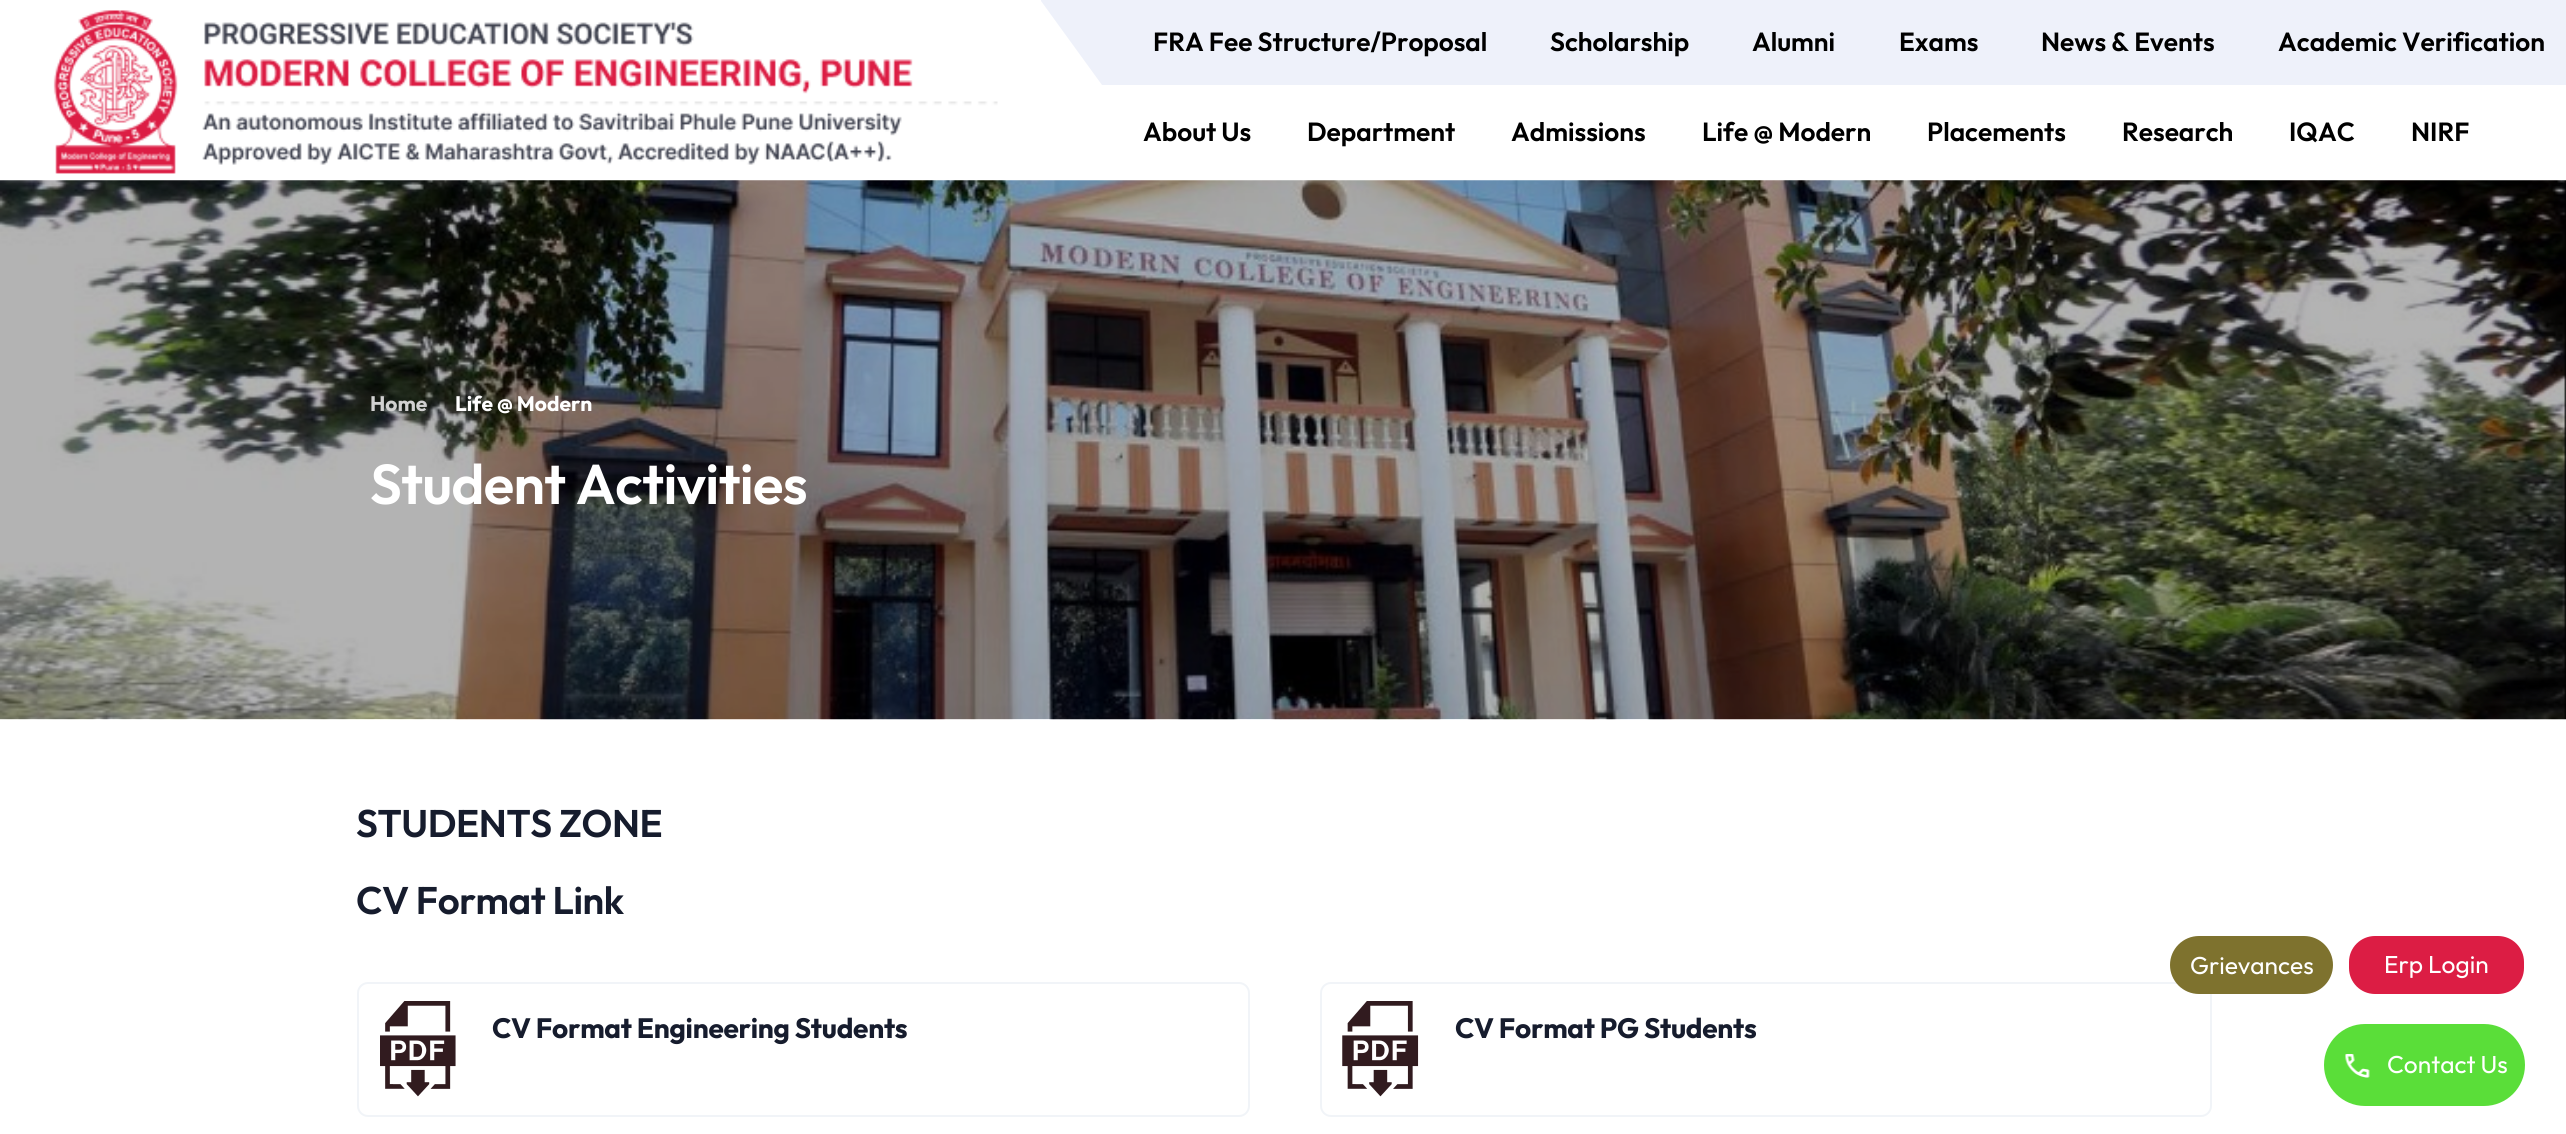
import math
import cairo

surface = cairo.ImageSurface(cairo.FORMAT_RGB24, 2566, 1134)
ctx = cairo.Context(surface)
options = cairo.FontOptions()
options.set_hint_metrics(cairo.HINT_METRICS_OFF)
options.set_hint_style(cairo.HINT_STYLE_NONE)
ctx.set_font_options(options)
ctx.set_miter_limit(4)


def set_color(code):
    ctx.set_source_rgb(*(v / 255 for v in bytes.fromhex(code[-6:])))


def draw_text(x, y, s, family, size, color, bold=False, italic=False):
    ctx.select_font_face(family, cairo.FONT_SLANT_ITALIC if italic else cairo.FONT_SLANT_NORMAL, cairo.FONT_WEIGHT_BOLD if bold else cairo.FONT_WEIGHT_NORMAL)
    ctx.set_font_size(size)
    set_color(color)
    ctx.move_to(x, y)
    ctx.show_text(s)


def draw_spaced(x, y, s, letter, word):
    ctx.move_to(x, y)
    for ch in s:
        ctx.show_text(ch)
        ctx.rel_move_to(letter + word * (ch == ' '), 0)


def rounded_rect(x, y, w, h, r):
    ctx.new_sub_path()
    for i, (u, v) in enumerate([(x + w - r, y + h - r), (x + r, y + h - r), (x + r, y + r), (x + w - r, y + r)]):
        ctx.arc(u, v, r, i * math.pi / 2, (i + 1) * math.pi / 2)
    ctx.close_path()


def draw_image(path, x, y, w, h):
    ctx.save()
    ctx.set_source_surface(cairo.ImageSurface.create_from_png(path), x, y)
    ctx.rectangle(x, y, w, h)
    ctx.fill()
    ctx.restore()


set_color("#ffffff")
ctx.paint()
draw_image("assets/img1.png", 53, 10, 945, 164)
set_color("#eef1fa")
ctx.new_path()
ctx.move_to(1041, 0)
ctx.line_to(1041, 1)
ctx.line_to(1102, 85)
ctx.line_to(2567, 85)
ctx.line_to(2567, 0)
ctx.close_path()
ctx.fill()
draw_text(1153, 51, "FRA Fee Structure/Proposal", "Outfit SemiBold", 26.25, "#000000")
draw_text(1550, 51, "Scholarship", "Outfit SemiBold", 26.25, "#000000")
draw_text(1752, 51, "Alumni", "Outfit SemiBold", 26.25, "#000000")
draw_text(1899, 51, "Exams", "Outfit SemiBold", 26.25, "#000000")
draw_text(2041, 51, "News & Events", "Outfit SemiBold", 26.25, "#000000")
draw_text(2278, 51, "Academic Verification", "Outfit SemiBold", 26.25, "#000000")
draw_text(1143, 141, "About Us", "Outfit SemiBold", 26.25, "#000000")
draw_text(1307, 141, "Department", "Outfit SemiBold", 26.25, "#000000")
draw_text(1511, 141, "Admissions", "Outfit SemiBold", 26.25, "#000000")
draw_text(1702, 141, "Life @ Modern", "Outfit SemiBold", 26.25, "#000000")
draw_text(1927, 141, "Placements", "Outfit SemiBold", 26.25, "#000000")
draw_text(2122, 141, "Research", "Outfit SemiBold", 26.25, "#000000")
draw_text(2289, 141, "IQAC", "Outfit SemiBold", 26.25, "#000000")
draw_text(2411, 141, "NIRF", "Outfit SemiBold", 26.25, "#000000")
draw_image("assets/img2.png", 0, 180, 2566, 540)
draw_text(370, 411, "Home", "Outfit", 21, "#d1d1d1", bold=True)
draw_text(455, 411, "Life @ Modern", "Outfit", 21, "#ffffff", bold=True)
ctx.select_font_face("Outfit SemiBold")
ctx.set_font_size(56)
draw_spaced(370, 504, "Student Activities", -0.6, 0)
ctx.set_font_size(38.5)
set_color("#161c2d")
draw_spaced(356, 837, "STUDENTS ZONE", -0.4, 0)
draw_spaced(356, 914, "CV Format Link", -0.4, 0)
rounded_rect(358, 983, 891, 133, 10)
set_color("#f1f4f8")
ctx.stroke()
draw_image("assets/img3.png", 380, 1001, 76, 96)
ctx.select_font_face("Outfit", cairo.FONT_SLANT_NORMAL, cairo.FONT_WEIGHT_BOLD)
ctx.set_font_size(28)
set_color("#161c2d")
draw_spaced(492, 1038, "CV Format Engineering Students", -0.25, 0)
rounded_rect(1321, 983, 890, 133, 10)
set_color("#f1f4f8")
ctx.stroke()
draw_image("assets/img4.png", 1342, 1001, 77, 96)
set_color("#161c2d")
draw_spaced(1455, 1038, "CV Format PG Students", -0.25, 0)
set_color("#7e722e")
rounded_rect(2170, 936, 163, 58, 29)
ctx.fill()
draw_text(2190, 974, "Grievances", "Outfit", 24.5, "#ffffff")
set_color("#dc1d44")
rounded_rect(2349, 936, 175, 58, 26)
ctx.fill()
draw_text(2384, 973, "Erp Login", "Outfit", 24.5, "#ffffff")
set_color("#5ade39")
rounded_rect(2324, 1024, 201, 82, 41)
ctx.fill()
draw_image("assets/img5.png", 2345, 1054, 25, 24)
draw_text(2387, 1073, "Contact Us", "Outfit", 24.5, "#ffffff")
surface.write_to_png("output.png")
